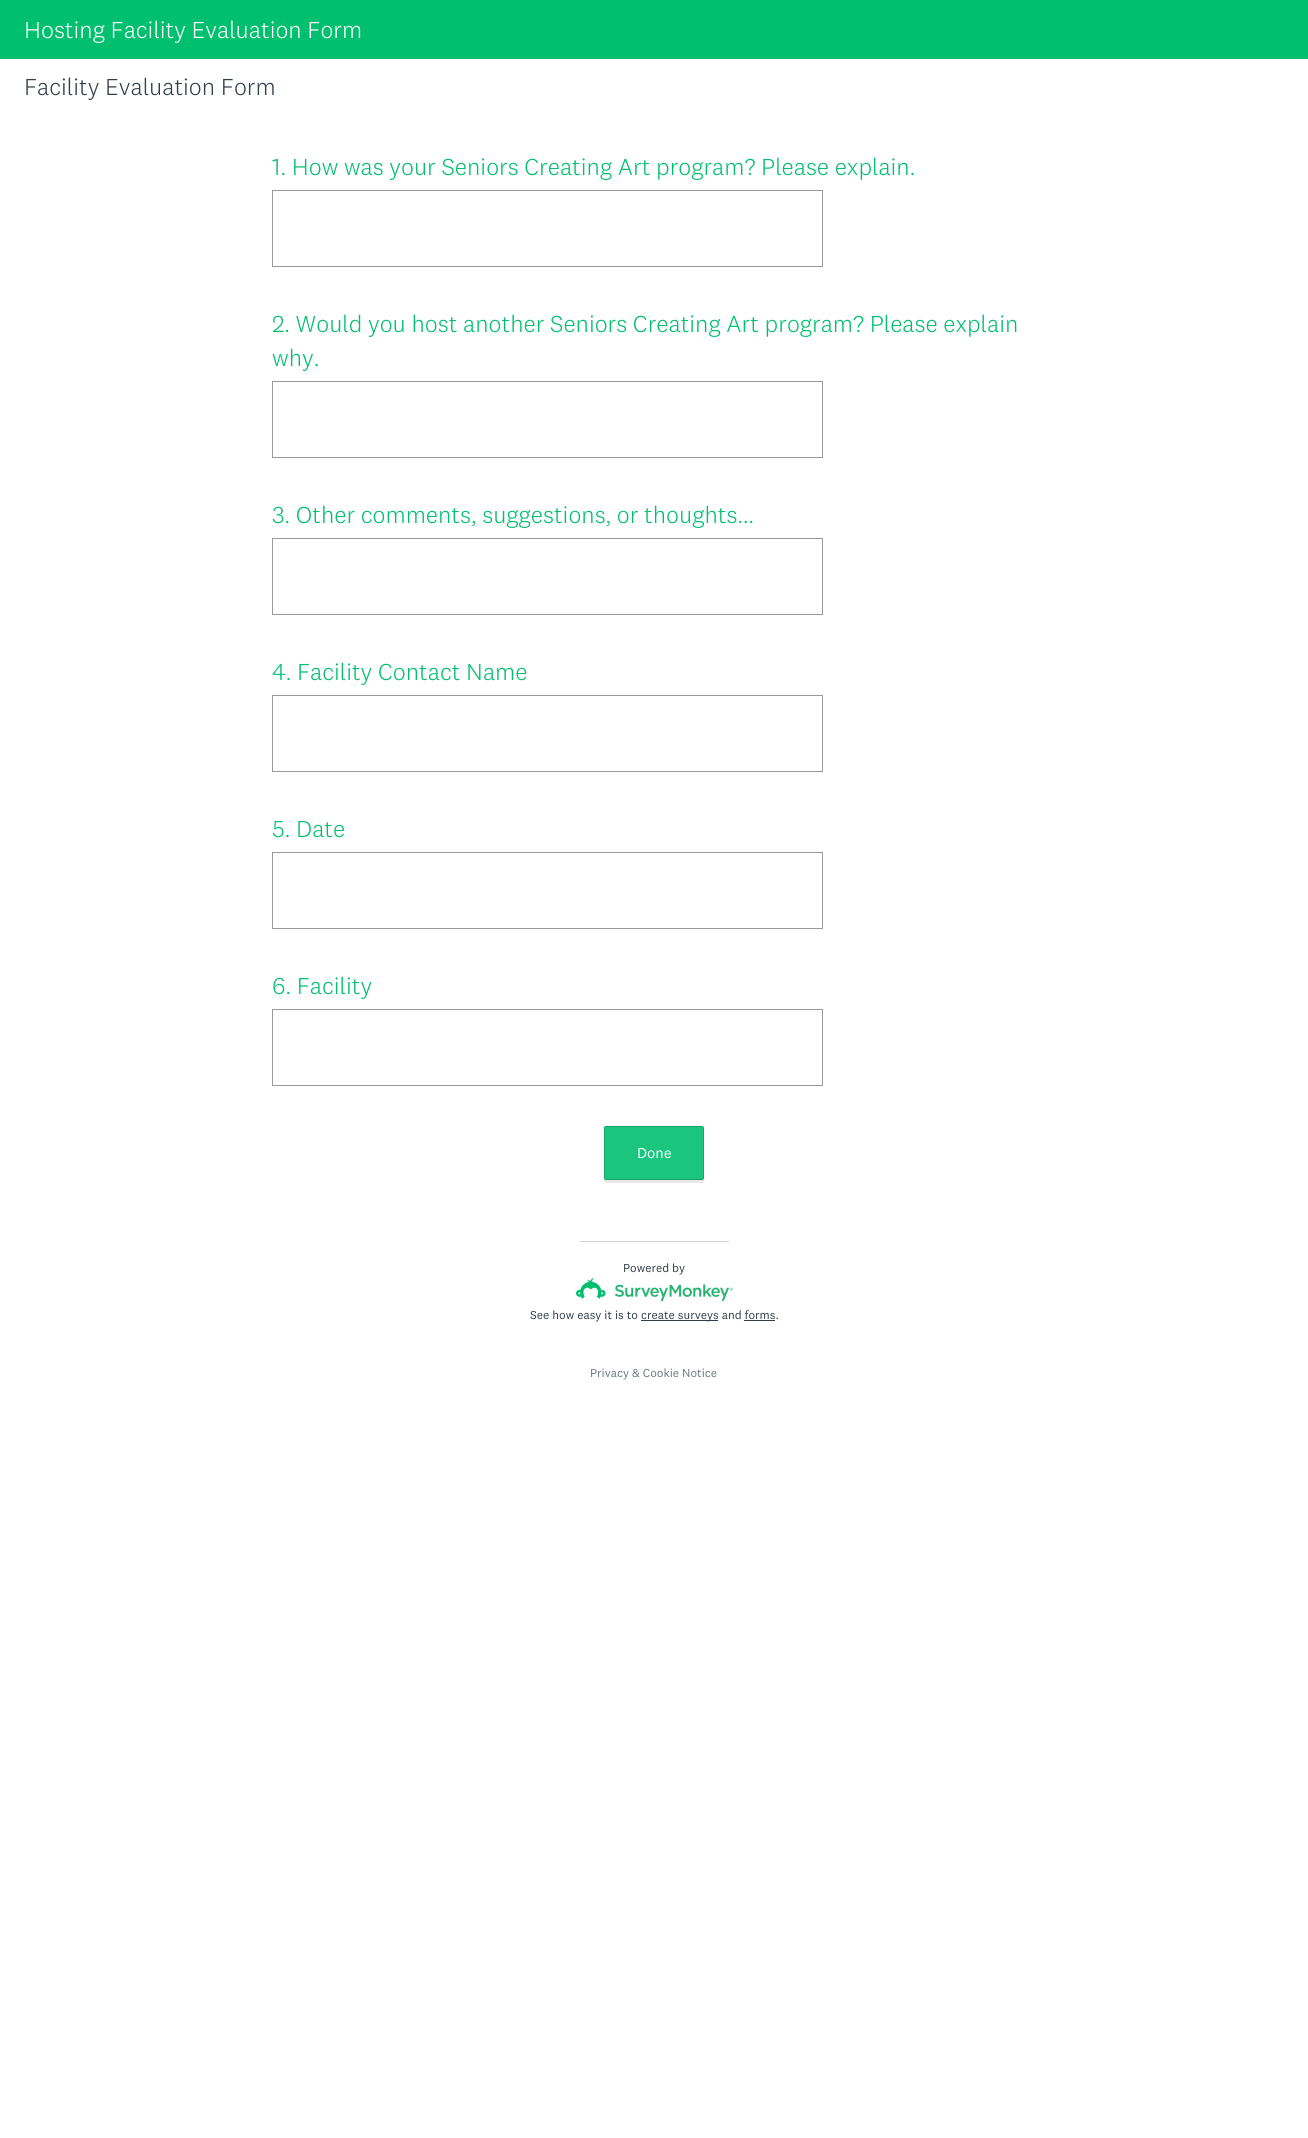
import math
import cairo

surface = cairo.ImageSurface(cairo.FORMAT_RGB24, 1308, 2138)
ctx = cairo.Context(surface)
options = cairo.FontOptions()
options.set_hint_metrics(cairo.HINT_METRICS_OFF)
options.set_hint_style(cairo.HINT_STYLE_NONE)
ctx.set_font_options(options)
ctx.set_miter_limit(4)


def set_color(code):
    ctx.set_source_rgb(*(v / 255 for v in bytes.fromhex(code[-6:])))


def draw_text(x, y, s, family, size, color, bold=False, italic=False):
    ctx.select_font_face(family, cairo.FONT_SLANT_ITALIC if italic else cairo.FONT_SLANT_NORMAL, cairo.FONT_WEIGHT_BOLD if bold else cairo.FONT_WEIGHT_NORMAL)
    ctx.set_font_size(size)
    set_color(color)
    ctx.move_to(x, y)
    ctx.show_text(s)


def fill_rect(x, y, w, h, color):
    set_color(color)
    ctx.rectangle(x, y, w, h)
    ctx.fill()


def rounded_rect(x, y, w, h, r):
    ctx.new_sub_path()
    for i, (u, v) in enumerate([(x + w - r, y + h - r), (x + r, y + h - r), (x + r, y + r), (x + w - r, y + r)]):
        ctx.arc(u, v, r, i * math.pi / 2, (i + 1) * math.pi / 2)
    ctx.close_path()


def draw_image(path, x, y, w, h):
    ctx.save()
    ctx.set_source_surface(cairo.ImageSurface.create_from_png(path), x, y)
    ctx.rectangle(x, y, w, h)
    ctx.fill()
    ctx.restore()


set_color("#ffffff")
ctx.paint()
fill_rect(0, 0, 1308, 59, "#00bf6f")
draw_text(24, 38, "Hosting Facility Evaluation Form", "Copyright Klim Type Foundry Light", 24, "#ffffff")
draw_text(24, 95, "Facility Evaluation Form", "Copyright Klim Type Foundry Light", 24, "#333e48")
draw_text(272, 175, "1. How was your Seniors Creating Art program? Please explain.", "Copyright Klim Type Foundry Light", 24, "#00bf6f")
ctx.rectangle(272.5, 190.5, 550, 76)
set_color("#999999")
ctx.set_line_width(1)
ctx.stroke()
draw_text(272, 332, "2. Would you host another Seniors Creating Art program? Please explain", "Copyright Klim Type Foundry Light", 24, "#00bf6f")
draw_text(272, 366, "why.", "Copyright Klim Type Foundry Light", 24, "#00bf6f")
ctx.rectangle(272.5, 381.5, 550, 76)
set_color("#999999")
ctx.stroke()
draw_text(272, 523, "3. Other comments, suggestions, or thoughts...", "Copyright Klim Type Foundry Light", 24, "#00bf6f")
ctx.rectangle(272.5, 538.5, 550, 76)
set_color("#999999")
ctx.stroke()
draw_text(272, 680, "4. Facility Contact Name", "Copyright Klim Type Foundry Light", 24, "#00bf6f")
ctx.rectangle(272.5, 695.5, 550, 76)
set_color("#999999")
ctx.stroke()
draw_text(272, 837, "5. Date", "Copyright Klim Type Foundry Light", 24, "#00bf6f")
ctx.rectangle(272.5, 852.5, 550, 76)
set_color("#999999")
ctx.stroke()
draw_text(272, 994, "6. Facility", "Copyright Klim Type Foundry Light", 24, "#00bf6f")
ctx.rectangle(272.5, 1009.5, 550, 76)
set_color("#999999")
ctx.stroke()
set_color("#e8e8e8")
ctx.new_path()
ctx.move_to(604, 1178)
ctx.line_to(604, 1181)
ctx.curve_to(604, 1182, 605, 1183, 606, 1183)
ctx.line_to(702, 1183)
ctx.curve_to(703, 1183, 704, 1182, 704, 1181)
ctx.line_to(704, 1178)
ctx.curve_to(704, 1179, 703, 1180, 702, 1180)
ctx.line_to(606, 1180)
ctx.curve_to(605, 1180, 604, 1179, 604, 1178)
ctx.close_path()
ctx.fill()
set_color("#1ac57d")
rounded_rect(604, 1126, 100, 54, 2)
ctx.fill()
rounded_rect(604.5, 1126.5, 99, 53, 1.5)
ctx.set_source_rgba(0.102, 0.102, 0.102, 0.2)
ctx.stroke()
draw_text(637, 1158, "Done", "Copyright Klim Type Foundry", 15, "#ffffff")
fill_rect(580, 1241, 149, 1, "#d0d2d3")
draw_text(623, 1272, "Powered by", "Copyright Klim Type Foundry", 12, "#333e48")
draw_image("assets/img1.png", 576, 1278, 157, 23)
draw_text(530, 1319, "See how easy it is to", "Copyright Klim Type Foundry", 12, "#333e48")
fill_rect(641, 1320, 77, 1, "#333e48")
draw_text(641, 1319, "create surveys and forms.", "Copyright Klim Type Foundry", 12, "#333e48")
fill_rect(744, 1320, 31, 1, "#333e48")
draw_text(590, 1377, "Privacy & Cookie Notice", "Copyright Klim Type Foundry", 12, "#6b787f")
surface.write_to_png("output.png")
